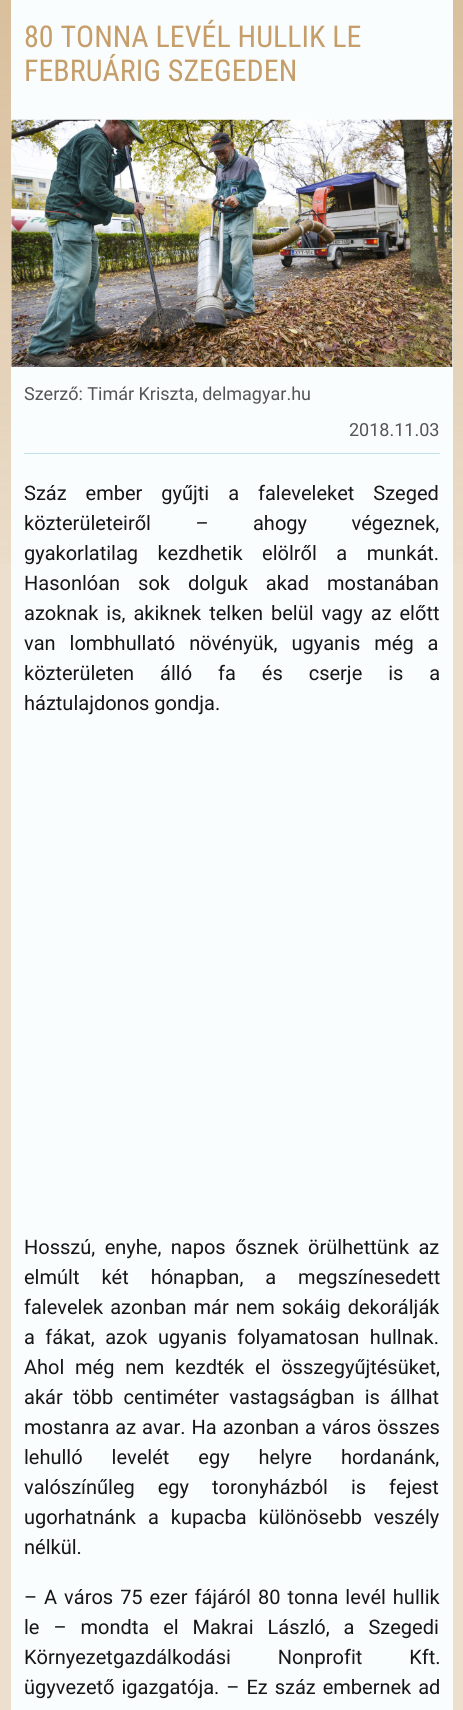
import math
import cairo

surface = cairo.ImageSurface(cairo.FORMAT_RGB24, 463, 1710)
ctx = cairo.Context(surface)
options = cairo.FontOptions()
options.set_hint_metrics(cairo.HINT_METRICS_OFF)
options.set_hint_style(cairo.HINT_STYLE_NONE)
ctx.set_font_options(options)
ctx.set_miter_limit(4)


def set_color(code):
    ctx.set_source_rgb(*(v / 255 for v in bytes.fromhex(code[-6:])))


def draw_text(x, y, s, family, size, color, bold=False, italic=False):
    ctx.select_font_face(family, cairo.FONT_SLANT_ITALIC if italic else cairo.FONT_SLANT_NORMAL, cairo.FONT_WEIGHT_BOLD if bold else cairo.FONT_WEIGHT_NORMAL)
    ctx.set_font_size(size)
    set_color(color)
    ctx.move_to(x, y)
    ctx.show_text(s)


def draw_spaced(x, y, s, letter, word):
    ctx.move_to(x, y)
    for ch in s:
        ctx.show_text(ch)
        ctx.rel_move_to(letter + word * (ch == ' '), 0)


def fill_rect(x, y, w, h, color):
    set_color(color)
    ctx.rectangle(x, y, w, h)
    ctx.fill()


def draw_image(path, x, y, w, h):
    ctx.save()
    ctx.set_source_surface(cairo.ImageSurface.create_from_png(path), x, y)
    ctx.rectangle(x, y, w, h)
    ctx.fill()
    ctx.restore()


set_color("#ecdfcd")
ctx.paint()
draw_image("assets/img1.png", 0, 0, 463, 564)
fill_rect(11, 0, 442, 1710, "#fafdfe")
draw_text(24, 47, "80 TONNA LEVÉL HULLIK LE", "Roboto Condensed", 30, "#c59e6a")
draw_text(24, 81, "FEBRUÁRIG SZEGEDEN", "Roboto Condensed", 30, "#c59e6a")
draw_image("assets/img2.png", 11, 119, 442, 248)
fill_rect(24, 453, 416, 1, "#c3e0ef")
draw_text(24, 400, "Szerző: Timár Kriszta, delmagyar.hu", "Roboto", 18, "#555555")
draw_text(349, 436, "2018.11.03", "Roboto", 18, "#555555")
ctx.set_font_size(20)
set_color("#161616")
draw_spaced(24, 500, "Száz ember gyűjti a faleveleket Szeged", 0, 14)
draw_spaced(24, 530, "közterületeiről – ahogy végeznek,", 0, 39.5)
draw_spaced(24, 560, "gyakorlatilag kezdhetik elölről a munkát.", 0, 14.5)
draw_spaced(24, 590, "Hasonlóan sok dolguk akad mostanában", 0, 13)
draw_spaced(24, 620, "azoknak is, akiknek telken belül vagy az előtt", 0, 3)
draw_spaced(24, 650, "van lombhullató növényük, ugyanis még a", 0, 9)
draw_spaced(24, 680, "közterületen álló fa és cserje is a", 0, 21)
draw_text(24, 710, "háztulajdonos gondja.", "Roboto", 20, "#161616")
draw_spaced(24, 1254, "Hosszú, enyhe, napos ősznek örülhettünk az", 0, 4.5)
draw_spaced(24, 1284, "elmúlt két hónapban, a megszínesedett", 0, 17)
draw_spaced(24, 1314, "falevelek azonban már nem sokáig dekorálják", 0, 2)
draw_spaced(24, 1344, "a fákat, azok ugyanis folyamatosan hullnak.", 0, 5.5)
draw_spaced(24, 1374, "Ahol még nem kezdték el összegyűjtésüket,", 0, 5.75)
draw_spaced(24, 1404, "akár több centiméter vastagságban is állhat", 0, 5.25)
draw_spaced(24, 1434, "mostanra az avar. Ha azonban a város összes", 0, 1)
draw_spaced(24, 1464, "lehulló levelét egy helyre hordanánk,", 0, 24)
draw_spaced(24, 1494, "valószínűleg egy toronyházból is fejest", 0, 18)
draw_spaced(24, 1524, "ugorhatnánk a kupacba különösebb veszély", 0, 7)
draw_text(24, 1554, "nélkül.", "Roboto", 20, "#161616")
draw_spaced(24, 1604, "– A város 75 ezer fájáról 80 tonna levél hullik", 0, 2)
draw_spaced(24, 1634, "le – mondta el Makrai László, a Szegedi", 0, 9)
draw_spaced(24, 1664, "Környezetgazdálkodási Nonprofit Kft.", 0, 42)
draw_spaced(24, 1694, "ügyvezető igazgatója. – Ez száz embernek ad", 0, 2)
surface.write_to_png("output.png")
